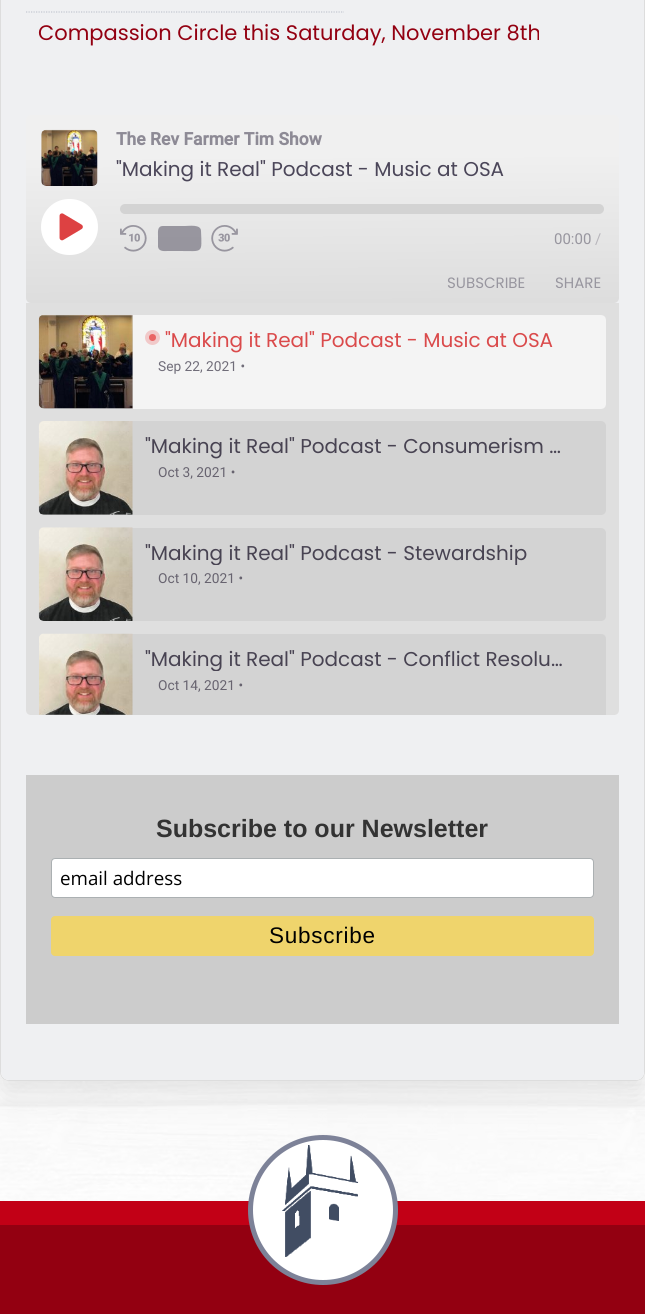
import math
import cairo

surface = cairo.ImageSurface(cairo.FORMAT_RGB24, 645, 1314)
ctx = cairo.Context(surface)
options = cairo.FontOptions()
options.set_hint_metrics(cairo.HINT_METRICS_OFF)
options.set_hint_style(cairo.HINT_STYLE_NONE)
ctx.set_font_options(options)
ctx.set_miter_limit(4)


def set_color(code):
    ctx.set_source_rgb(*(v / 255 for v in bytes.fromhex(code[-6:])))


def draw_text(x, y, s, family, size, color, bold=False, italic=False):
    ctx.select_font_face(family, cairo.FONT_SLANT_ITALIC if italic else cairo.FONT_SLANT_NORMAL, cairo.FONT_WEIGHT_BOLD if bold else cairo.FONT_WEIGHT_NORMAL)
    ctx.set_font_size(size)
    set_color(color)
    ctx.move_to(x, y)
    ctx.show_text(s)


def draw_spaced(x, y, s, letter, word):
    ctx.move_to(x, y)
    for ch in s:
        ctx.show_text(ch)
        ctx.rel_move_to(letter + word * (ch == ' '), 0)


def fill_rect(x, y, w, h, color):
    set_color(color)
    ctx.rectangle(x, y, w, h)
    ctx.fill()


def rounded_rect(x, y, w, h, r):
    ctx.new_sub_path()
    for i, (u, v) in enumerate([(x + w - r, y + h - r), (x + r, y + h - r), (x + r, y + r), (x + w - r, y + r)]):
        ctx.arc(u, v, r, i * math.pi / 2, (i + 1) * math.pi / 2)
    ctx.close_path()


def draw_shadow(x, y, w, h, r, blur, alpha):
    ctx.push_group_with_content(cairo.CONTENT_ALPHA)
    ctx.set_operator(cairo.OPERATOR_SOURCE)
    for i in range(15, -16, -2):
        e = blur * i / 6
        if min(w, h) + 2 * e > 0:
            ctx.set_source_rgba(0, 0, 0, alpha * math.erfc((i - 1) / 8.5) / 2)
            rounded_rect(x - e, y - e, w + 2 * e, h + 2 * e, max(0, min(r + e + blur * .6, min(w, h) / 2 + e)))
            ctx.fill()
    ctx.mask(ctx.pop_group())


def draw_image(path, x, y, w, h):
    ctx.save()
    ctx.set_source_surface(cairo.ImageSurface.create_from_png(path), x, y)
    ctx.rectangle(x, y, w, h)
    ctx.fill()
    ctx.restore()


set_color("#ffffff")
ctx.paint()
draw_image("assets/img9.png", 0, 1072, 645, 129)
ctx.save()
ctx.set_fill_rule(cairo.FILL_RULE_EVEN_ODD)
ctx.new_path()
ctx.move_to(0, 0)
ctx.line_to(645, 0)
ctx.line_to(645, 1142)
ctx.line_to(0, 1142)
ctx.close_path()
ctx.move_to(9, -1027)
ctx.line_to(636, -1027)
ctx.curve_to(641, -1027, 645, -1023, 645, -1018)
ctx.line_to(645, 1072)
ctx.curve_to(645, 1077, 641, 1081, 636, 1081)
ctx.line_to(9, 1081)
ctx.curve_to(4, 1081, 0, 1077, 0, 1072)
ctx.line_to(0, -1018)
ctx.curve_to(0, -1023, 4, -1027, 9, -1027)
ctx.close_path()
ctx.clip()
set_color("#000000")
draw_shadow(0, -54, 645, 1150, 9, 15, 0.09)
ctx.restore()
rounded_rect(0.5, -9.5, 644, 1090, 8.5)
set_color("#dddddd")
ctx.set_line_width(1)
ctx.stroke()
set_color("#eff0f2")
ctx.new_path()
ctx.move_to(1, -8)
ctx.line_to(644, -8)
ctx.line_to(644, 1072)
ctx.curve_to(644, 1076.5, 640.5, 1080, 636, 1080)
ctx.line_to(9, 1080)
ctx.curve_to(4.5, 1080, 1, 1076.5, 1, 1072)
ctx.close_path()
ctx.fill()
ctx.new_path()
ctx.move_to(26, 12)
ctx.line_to(344, 12)
set_color("#c4c7d0")
ctx.set_line_width(1.2)
ctx.set_dash([1.25, 1.25])
ctx.stroke()
draw_text(38, 40, "Compassion Circle this Saturday, November 8th", "Poppins", 21, "#930011")
gradient = cairo.LinearGradient(323, 304, 322, 113)
gradient.add_color_stop_rgba(0.01, 0.867, 0.867, 0.867, 1)
gradient.add_color_stop_rgba(0.78, 0.941, 0.941, 0.941, 1)
ctx.set_source(gradient)
rounded_rect(26, 115, 593, 188, 5)
ctx.fill()
draw_image("assets/img1.png", 41, 129, 57, 57)
draw_text(116, 145, "The Rev Farmer Tim Show", "Roboto", 17.5, "#8d8a95", bold=True)
draw_text(116, 176, "\"Making it Real\" Podcast - Music at OSA", "Poppins", 20, "#4b4659")
set_color("#ffffff")
rounded_rect(41, 199, 57, 56, 28)
ctx.fill()
draw_image("assets/img2.png", 59, 213, 24, 28)
set_color("#d3d3d3")
rounded_rect(120, 204, 484, 10, 5)
ctx.fill()
draw_image("assets/img3.png", 120, 225, 27, 27)
ctx.set_source_rgba(0.294, 0.275, 0.349, 0.5)
ctx.new_path()
ctx.move_to(163, 226)
ctx.line_to(185, 226)
ctx.curve_to(189, 226, 201, 224, 201, 231)
ctx.curve_to(202, 254, 203, 251, 180, 251)
ctx.line_to(168, 251)
ctx.curve_to(165, 251, 159, 252, 158, 247)
ctx.line_to(158, 236)
ctx.curve_to(158, 232, 157, 226, 163, 226)
ctx.close_path()
ctx.fill()
draw_image("assets/img4.png", 211, 225, 27, 27)
draw_text(554, 244, "00:00", "Roboto", 15, "#98969f")
draw_text(595, 244, "/", "Roboto", 15, "#b7b5bb")
draw_text(447, 288, "SUBSCRIBE", "Poppins", 15, "#98969f")
draw_text(555, 288, "SHARE", "Poppins", 15, "#98969f")
set_color("#dfdfdf")
ctx.new_path()
ctx.move_to(26, 303)
ctx.line_to(619, 303)
ctx.line_to(619, 710)
ctx.curve_to(619, 713, 617, 715, 614, 715)
ctx.line_to(31, 715)
ctx.curve_to(28, 715, 26, 713, 26, 710)
ctx.close_path()
ctx.fill()
set_color("#d3d3d3")
rounded_rect(39, 315, 567, 94, 5)
ctx.fill()
draw_image("assets/img5.png", 38, 314, 95, 95)
set_color("#f4f4f4")
ctx.new_path()
ctx.move_to(133, 315)
ctx.line_to(601, 315)
ctx.curve_to(604, 315, 606, 317, 606, 320)
ctx.line_to(606, 404)
ctx.curve_to(606, 407, 604, 409, 601, 409)
ctx.line_to(133, 409)
ctx.close_path()
ctx.fill()
set_color("#f1c9c9")
ctx.arc(152.5, 337.5, 7.5, 0, 2 * math.pi)
ctx.fill()
set_color("#e96565")
ctx.arc(152.5, 337.5, 3.5, 0, 2 * math.pi)
ctx.fill()
draw_text(165, 347, "\"Making it Real\" Podcast - Music at OSA", "Poppins", 20, "#da4a4b")
draw_text(158, 371, "Sep 22, 2021 •", "Roboto", 13.75, "#706d79")
set_color("#d3d3d3")
rounded_rect(39, 421, 567, 94, 5)
ctx.fill()
draw_image("assets/img6.png", 38, 421, 95, 94)
draw_text(145, 453, "\"Making it Real\" Podcast - Consumerism …", "Poppins", 20, "#484352")
draw_text(158, 477, "Oct 3, 2021 •", "Roboto", 13.75, "#67636f")
set_color("#d3d3d3")
rounded_rect(39, 528, 567, 93, 5)
ctx.fill()
draw_image("assets/img7.png", 38, 527, 95, 94)
ctx.save()
ctx.rectangle(145, 540, 424, 25)
ctx.clip()
draw_text(145, 560, "\"Making it Real\" Podcast - Stewardship", "Poppins", 20, "#484352")
ctx.restore()
draw_text(158, 583, "Oct 10, 2021 •", "Roboto", 13.75, "#67636f")
set_color("#d3d3d3")
ctx.new_path()
ctx.move_to(44, 634)
ctx.line_to(601, 634)
ctx.curve_to(604, 634, 606, 636, 606, 639)
ctx.line_to(606, 715)
ctx.line_to(39, 715)
ctx.line_to(39, 639)
ctx.curve_to(39, 636, 41, 634, 44, 634)
ctx.close_path()
ctx.fill()
draw_image("assets/img8.png", 39, 633, 94, 82)
ctx.save()
ctx.rectangle(145, 646, 424, 25)
ctx.clip()
draw_text(145, 666, "\"Making it Real\" Podcast - Conflict Resolu…", "Poppins", 20, "#484352")
ctx.restore()
draw_text(158, 690, "Oct 14, 2021 •", "Roboto", 13.75, "#67636f")
fill_rect(26, 775, 593, 249, "#cccccc")
draw_text(156, 837, "Subscribe to our Newsletter", "Liberation Sans", 25, "#333333", bold=True)
set_color("#ffffff")
rounded_rect(51.5, 858.5, 542, 39, 3.5)
ctx.fill_preserve()
set_color("#abb0b2")
ctx.set_line_width(1)
ctx.set_dash([])
ctx.stroke()
draw_text(60, 885, "email address", "Open Sans", 18.75, "#000000")
set_color("#efd46c")
rounded_rect(51, 916, 543, 40, 4)
ctx.fill()
ctx.select_font_face("Liberation Sans")
ctx.set_font_size(22.5)
set_color("#000000")
draw_spaced(269, 943, "Subscribe", 0.75, 0)
fill_rect(0, 1225, 645, 89, "#930011")
fill_rect(0, 1201, 645, 24, "#c20016")
set_color("#ffffff")
ctx.new_path()
ctx.arc(323, 1210, 72.5, 0, 2 * math.pi)
ctx.fill_preserve()
set_color("#7d8298")
ctx.set_line_width(5)
ctx.stroke()
draw_image("assets/img10.png", 282, 1145, 77, 112)
surface.write_to_png("output.png")
